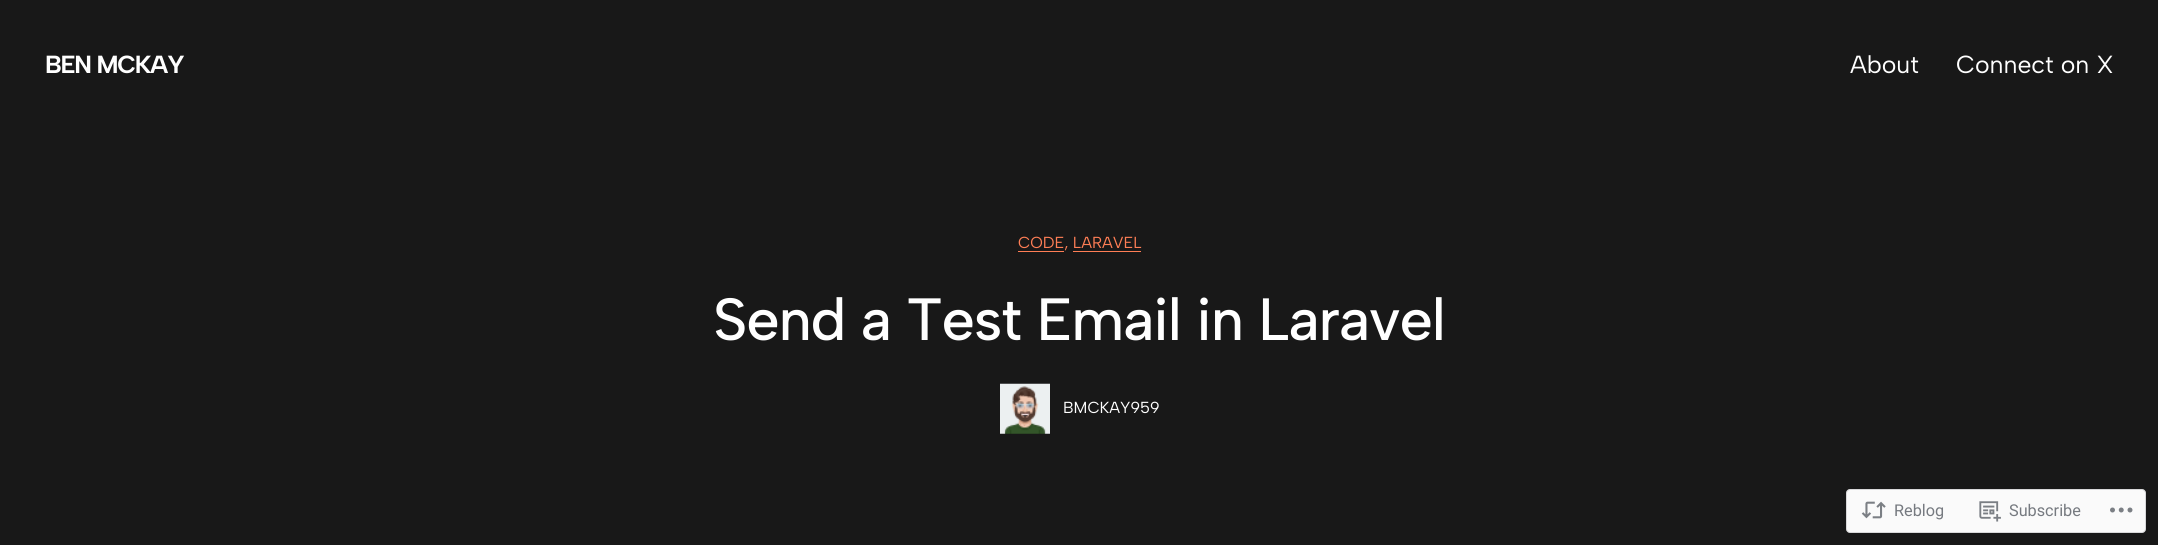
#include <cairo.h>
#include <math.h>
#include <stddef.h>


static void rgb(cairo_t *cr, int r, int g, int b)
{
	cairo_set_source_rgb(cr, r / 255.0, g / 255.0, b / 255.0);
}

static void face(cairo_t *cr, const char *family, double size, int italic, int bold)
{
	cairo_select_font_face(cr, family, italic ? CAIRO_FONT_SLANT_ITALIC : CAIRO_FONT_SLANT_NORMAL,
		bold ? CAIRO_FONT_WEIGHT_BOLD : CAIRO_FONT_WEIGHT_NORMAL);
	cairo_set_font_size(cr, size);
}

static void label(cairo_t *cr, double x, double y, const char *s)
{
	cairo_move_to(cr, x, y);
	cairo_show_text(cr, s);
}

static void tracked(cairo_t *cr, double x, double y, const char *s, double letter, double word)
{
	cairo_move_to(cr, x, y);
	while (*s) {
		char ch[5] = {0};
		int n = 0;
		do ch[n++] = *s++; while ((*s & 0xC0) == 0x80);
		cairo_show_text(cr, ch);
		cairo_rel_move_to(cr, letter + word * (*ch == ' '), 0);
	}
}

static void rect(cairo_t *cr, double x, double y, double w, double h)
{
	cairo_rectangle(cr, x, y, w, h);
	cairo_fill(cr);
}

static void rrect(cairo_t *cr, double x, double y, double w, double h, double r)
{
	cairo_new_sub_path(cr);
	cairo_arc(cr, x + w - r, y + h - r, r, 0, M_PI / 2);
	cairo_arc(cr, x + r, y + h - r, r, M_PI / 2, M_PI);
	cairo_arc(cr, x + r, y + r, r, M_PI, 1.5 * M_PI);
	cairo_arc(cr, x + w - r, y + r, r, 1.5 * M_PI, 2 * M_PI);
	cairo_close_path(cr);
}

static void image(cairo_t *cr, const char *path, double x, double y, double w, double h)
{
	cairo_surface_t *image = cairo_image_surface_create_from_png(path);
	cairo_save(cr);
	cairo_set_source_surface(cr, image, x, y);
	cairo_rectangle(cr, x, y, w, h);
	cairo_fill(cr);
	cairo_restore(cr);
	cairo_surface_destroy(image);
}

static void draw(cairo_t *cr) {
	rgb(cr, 24, 24, 24);
	cairo_paint(cr);
	face(cr, "Albert Sans", 24.75, 0, 1);
	rgb(cr, 255, 255, 255);
	tracked(cr, 45, 73, "BEN MCKAY", -1.25, 0);
	face(cr, "Albert Sans", 24.75, 0, 0);
	label(cr, 1850, 73, "About");
	label(cr, 1956, 73, "Connect on X");
	face(cr, "Albert Sans", 16, 0, 0);
	rgb(cr, 255, 126, 85);
	label(cr, 1018, 248, "CODE, LARAVEL");
	rect(cr, 1018, 251, 46, 1);
	rect(cr, 1073, 251, 68, 1);
	face(cr, "Albert Sans Medium", 59.5, 0, 0);
	rgb(cr, 255, 255, 255);
	tracked(cr, 713, 340, "Send a Test Email in Laravel", -1.25, 0);
	image(cr, "image0.png", 1000, 383, 50, 51);
	face(cr, "Albert Sans", 16, 0, 0);
	label(cr, 1063, 413, "BMCKAY959");
	rgb(cr, 250, 250, 250);
	rrect(cr, 1846.5, 489.5, 299, 43, 3.5);
	cairo_fill_preserve(cr);
	rgb(cr, 216, 216, 218);
	cairo_set_line_width(cr, 1);
	cairo_stroke(cr);
	image(cr, "image1.png", 1861, 501, 25, 18);
	face(cr, "Roboto", 16.25, 0, 0);
	rgb(cr, 118, 122, 128);
	label(cr, 1894, 516, "Reblog");
	image(cr, "image2.png", 1979, 501, 22, 21);
	label(cr, 2009, 516, "Subscribe");
	image(cr, "image3.png", 2110, 507, 23, 6);
}

int main(void) {
	cairo_surface_t *surface = cairo_image_surface_create(CAIRO_FORMAT_RGB24, 2158, 545);
	cairo_t *cr = cairo_create(surface);
	cairo_font_options_t *options = cairo_font_options_create();
	cairo_font_options_set_hint_metrics(options, CAIRO_HINT_METRICS_OFF);
	cairo_font_options_set_hint_style(options, CAIRO_HINT_STYLE_NONE);
	cairo_set_font_options(cr, options);
	cairo_set_miter_limit(cr, 4);
	draw(cr);
	cairo_surface_write_to_png(surface, "render.png");
	cairo_font_options_destroy(options);
	cairo_destroy(cr);
	cairo_surface_destroy(surface);
	return 0;
}
